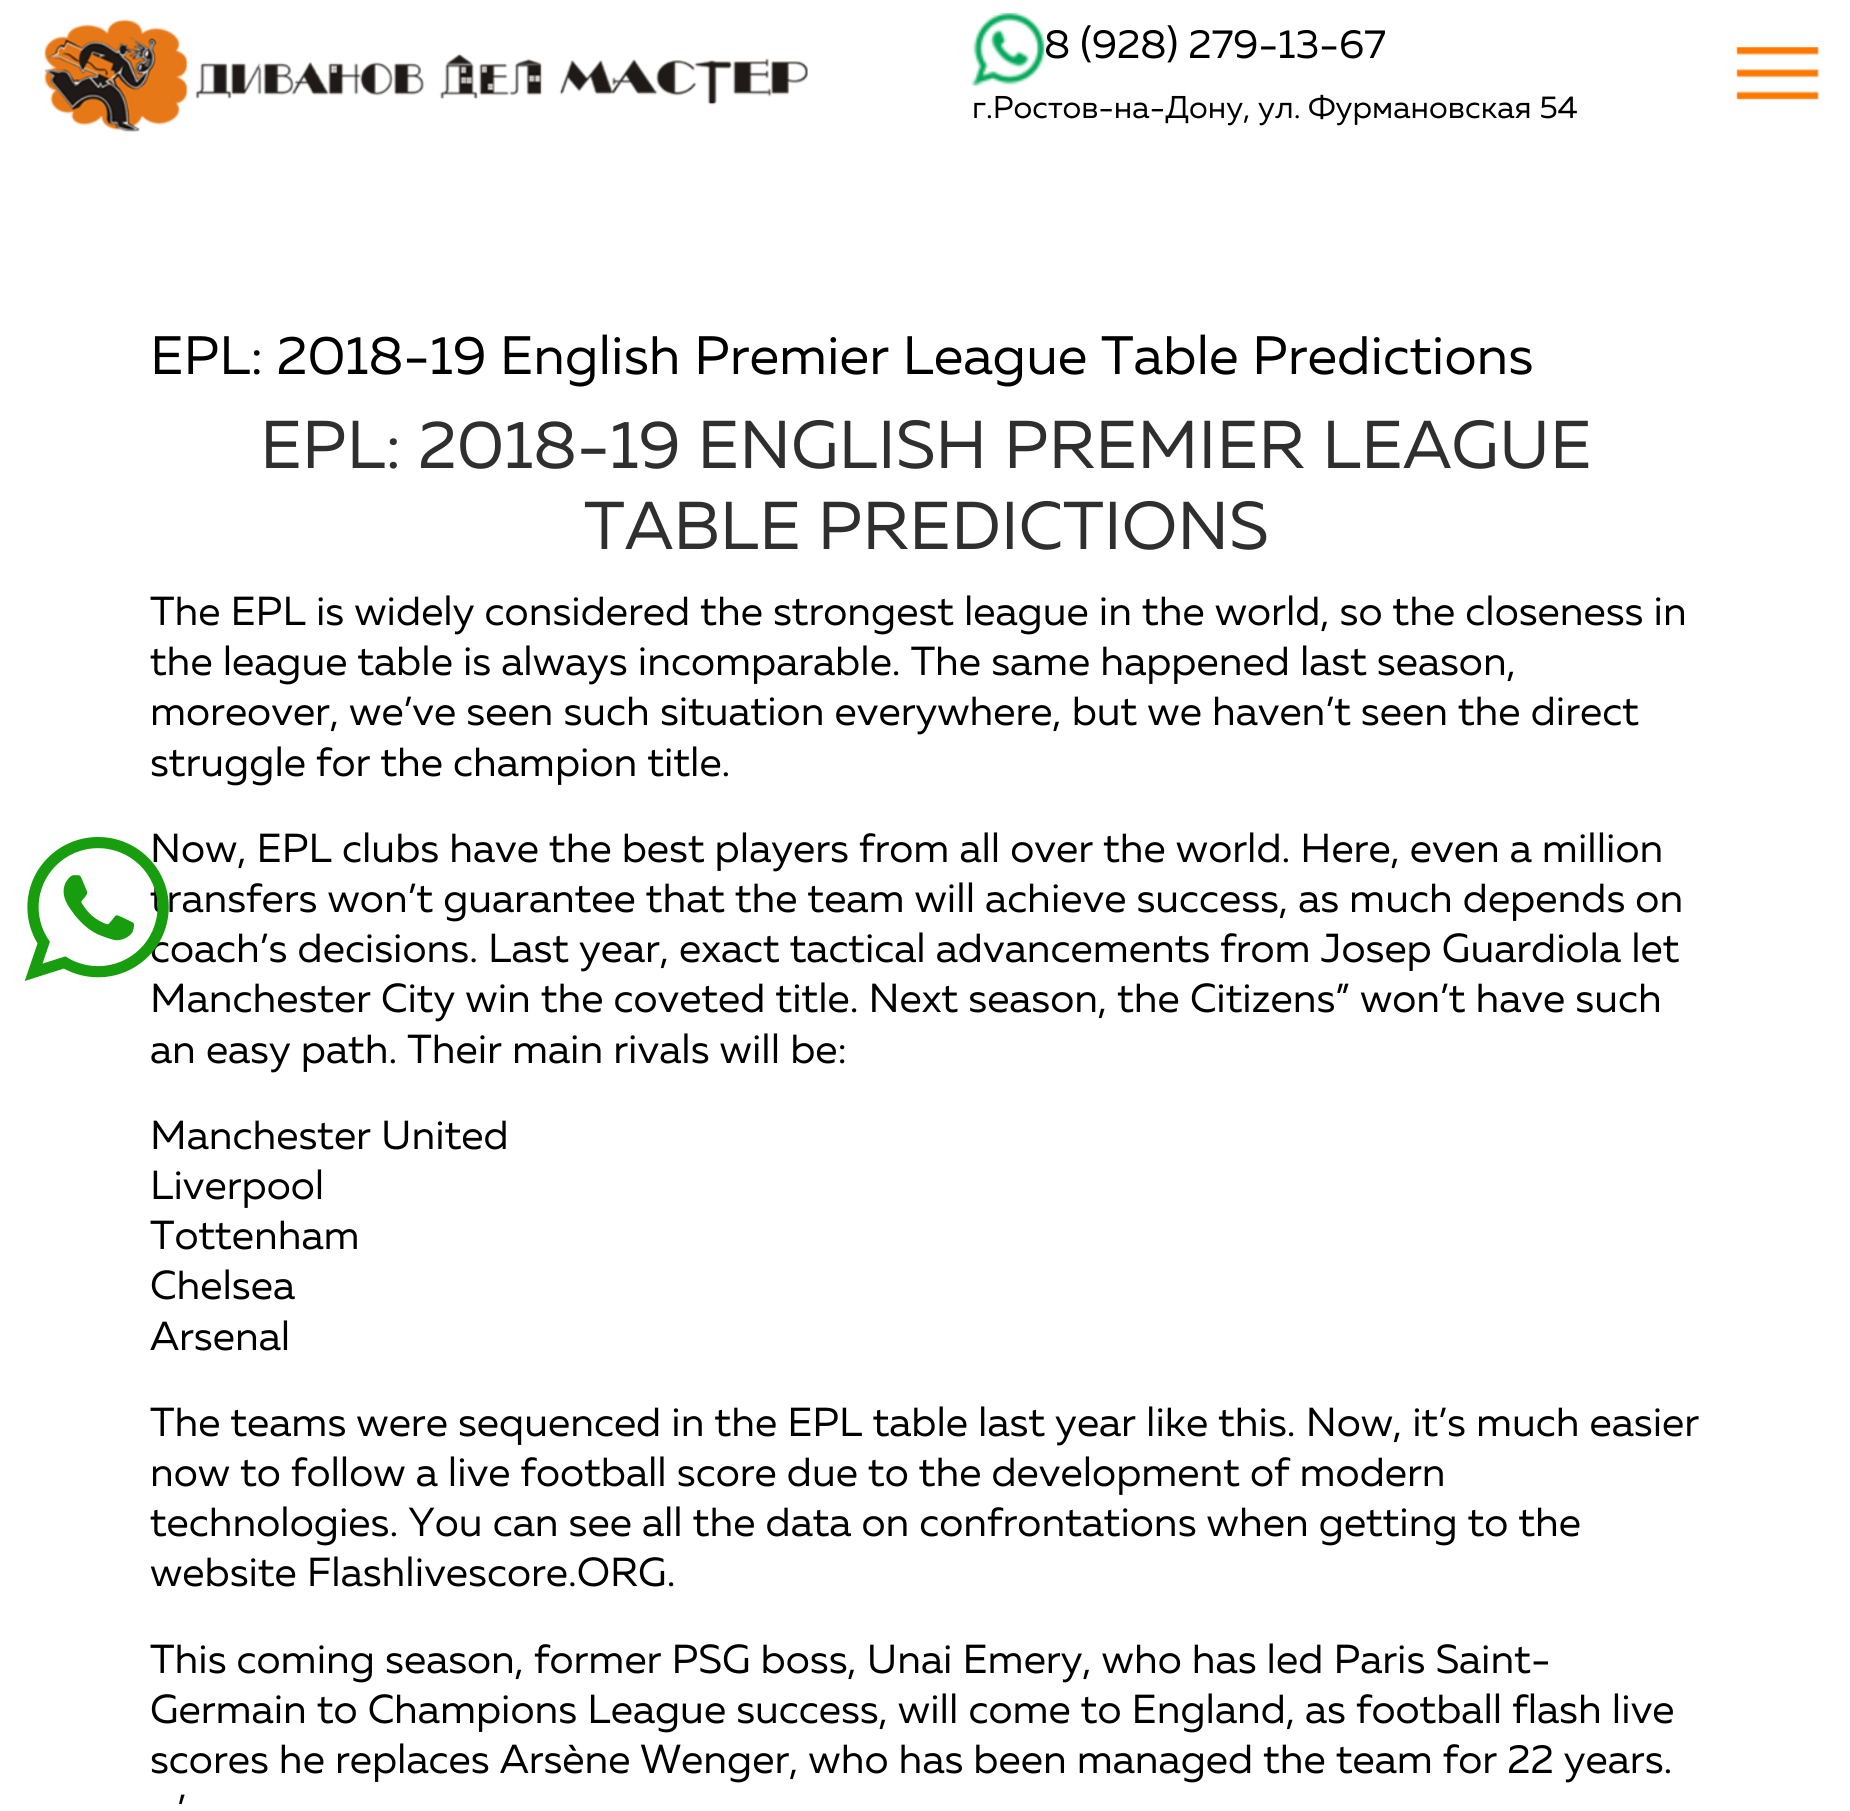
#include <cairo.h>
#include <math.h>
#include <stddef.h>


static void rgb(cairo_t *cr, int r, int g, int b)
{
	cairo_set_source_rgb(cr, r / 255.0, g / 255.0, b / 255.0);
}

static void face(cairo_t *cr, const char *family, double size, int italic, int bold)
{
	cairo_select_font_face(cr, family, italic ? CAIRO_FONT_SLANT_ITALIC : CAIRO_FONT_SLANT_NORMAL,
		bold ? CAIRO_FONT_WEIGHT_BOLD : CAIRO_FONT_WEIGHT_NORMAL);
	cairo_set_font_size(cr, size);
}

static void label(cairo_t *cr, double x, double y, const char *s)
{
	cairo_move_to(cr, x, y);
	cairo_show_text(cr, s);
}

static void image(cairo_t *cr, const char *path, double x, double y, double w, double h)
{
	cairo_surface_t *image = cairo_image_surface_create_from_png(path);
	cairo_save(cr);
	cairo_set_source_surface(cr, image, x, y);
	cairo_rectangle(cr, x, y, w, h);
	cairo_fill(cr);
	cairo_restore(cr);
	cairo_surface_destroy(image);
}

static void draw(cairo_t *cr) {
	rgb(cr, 255, 255, 255);
	cairo_paint(cr);
	image(cr, "image0.png", 44, 19, 764, 114);
	image(cr, "image1.png", 971, 13, 74, 74);
	face(cr, "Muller", 40.5, 0, 0);
	rgb(cr, 0, 0, 0);
	label(cr, 1044, 58, "8 (928) 279-13-67");
	face(cr, "Muller", 31.5, 0, 0);
	label(cr, 972, 118, "г.Ростов-на-Дону, ул. Фурмановская 54");
	image(cr, "image2.png", 1736, 47, 83, 53);
	face(cr, "Muller", 40.5, 0, 0);
	label(cr, 150, 862, "Now, EPL clubs have the best players from all over the world. Here, even a million");
	label(cr, 150, 912, "transfers won’t guarantee that the team will achieve success, as much depends on");
	label(cr, 150, 962, "coach’s decisions. Last year, exact tactical advancements from Josep Guardiola let");
	image(cr, "image3.png", 25, 837, 144, 144);
	face(cr, "Muller", 54, 0, 0);
	label(cr, 150, 374, "EPL: 2018-19 English Premier League Table Predictions");
	face(cr, "Muller", 67.5, 0, 0);
	rgb(cr, 47, 47, 47);
	label(cr, 260, 468, "EPL: 2018-19 ENGLISH PREMIER LEAGUE");
	label(cr, 584, 549, "TABLE PREDICTIONS");
	face(cr, "Muller", 40.5, 0, 0);
	rgb(cr, 0, 0, 0);
	label(cr, 150, 625, "The EPL is widely considered the strongest league in the world, so the closeness in");
	label(cr, 150, 675, "the league table is always incomparable. The same happened last season,");
	label(cr, 150, 725, "moreover, we’ve seen such situation everywhere, but we haven’t seen the direct");
	label(cr, 150, 776, "struggle for the champion title.");
	label(cr, 150, 1012, "Manchester City win the coveted title. Next season, the Citizens” won’t have such");
	label(cr, 150, 1063, "an easy path. Their main rivals will be:");
	label(cr, 150, 1149, "Manchester United");
	label(cr, 150, 1199, "Liverpool");
	label(cr, 150, 1249, "Tottenham");
	label(cr, 150, 1299, "Chelsea");
	label(cr, 150, 1350, "Arsenal");
	label(cr, 150, 1436, "The teams were sequenced in the EPL table last year like this. Now, it’s much easier");
	label(cr, 150, 1486, "now to follow a live football score due to the development of modern");
	label(cr, 150, 1536, "technologies. You can see all the data on confrontations when getting to the");
	label(cr, 150, 1586, "website Flashlivescore.ORG.");
	label(cr, 150, 1673, "This coming season, former PSG boss, Unai Emery, who has led Paris Saint-");
	label(cr, 150, 1723, "Germain to Champions League success, will come to England, as football flash live");
	label(cr, 150, 1773, "scores he replaces Arsène Wenger, who has been managed the team for 22 years.");
	label(cr, 177, 1823, "’");
}

int main(void) {
	cairo_surface_t *surface = cairo_image_surface_create(CAIRO_FORMAT_RGB24, 1850, 1811);
	cairo_t *cr = cairo_create(surface);
	cairo_font_options_t *options = cairo_font_options_create();
	cairo_font_options_set_hint_metrics(options, CAIRO_HINT_METRICS_OFF);
	cairo_font_options_set_hint_style(options, CAIRO_HINT_STYLE_NONE);
	cairo_set_font_options(cr, options);
	cairo_set_miter_limit(cr, 4);
	draw(cr);
	cairo_surface_write_to_png(surface, "render.png");
	cairo_font_options_destroy(options);
	cairo_destroy(cr);
	cairo_surface_destroy(surface);
	return 0;
}
